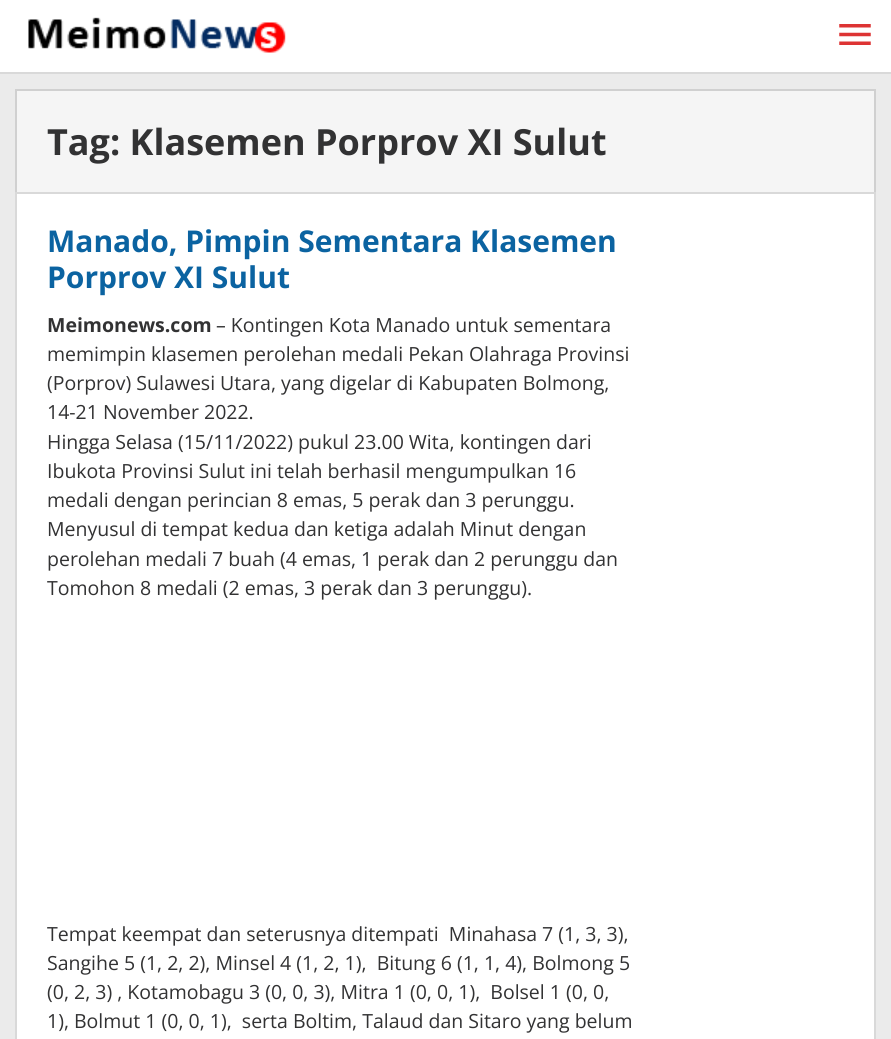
#include <cairo.h>
#include <math.h>
#include <stddef.h>


static void rgb(cairo_t *cr, int r, int g, int b)
{
	cairo_set_source_rgb(cr, r / 255.0, g / 255.0, b / 255.0);
}

static void face(cairo_t *cr, const char *family, double size, int italic, int bold)
{
	cairo_select_font_face(cr, family, italic ? CAIRO_FONT_SLANT_ITALIC : CAIRO_FONT_SLANT_NORMAL,
		bold ? CAIRO_FONT_WEIGHT_BOLD : CAIRO_FONT_WEIGHT_NORMAL);
	cairo_set_font_size(cr, size);
}

static void label(cairo_t *cr, double x, double y, const char *s)
{
	cairo_move_to(cr, x, y);
	cairo_show_text(cr, s);
}

static void rect(cairo_t *cr, double x, double y, double w, double h)
{
	cairo_rectangle(cr, x, y, w, h);
	cairo_fill(cr);
}

static void image(cairo_t *cr, const char *path, double x, double y, double w, double h)
{
	cairo_surface_t *image = cairo_image_surface_create_from_png(path);
	cairo_save(cr);
	cairo_set_source_surface(cr, image, x, y);
	cairo_rectangle(cr, x, y, w, h);
	cairo_fill(cr);
	cairo_restore(cr);
	cairo_surface_destroy(image);
}

static void draw(cairo_t *cr) {
	rgb(cr, 235, 235, 235);
	cairo_paint(cr);
	rgb(cr, 255, 255, 255);
	rect(cr, 0, 0, 891, 72);
	rgb(cr, 217, 217, 217);
	rect(cr, 0, 72, 891, 2);
	image(cr, "image0.png", 28, 17, 258, 36);
	image(cr, "image1.png", 839, 24, 32, 21);
	rgb(cr, 245, 245, 245);
	cairo_rectangle(cr, 16, 90, 859, 103);
	cairo_fill_preserve(cr);
	rgb(cr, 208, 208, 208);
	cairo_stroke(cr);
	face(cr, "Open Sans", 36, 0, 1);
	rgb(cr, 50, 50, 51);
	label(cr, 47, 155, "Tag: Klasemen Porprov XI Sulut");
	rgb(cr, 255, 255, 255);
	cairo_rectangle(cr, 16, 193, 859, 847);
	cairo_fill_preserve(cr);
	rgb(cr, 217, 217, 217);
	cairo_stroke(cr);
	face(cr, "Open Sans", 30, 0, 1);
	rgb(cr, 11, 99, 161);
	label(cr, 47, 252, "Manado, Pimpin Sementara Klasemen");
	label(cr, 47, 288, "Porprov XI Sulut");
	face(cr, "Open Sans", 19.5, 0, 1);
	rgb(cr, 50, 50, 51);
	label(cr, 47, 332, "Meimonews.com");
	face(cr, "Open Sans", 19.5, 0, 0);
	label(cr, 216, 332, "– Kontingen Kota Manado untuk sementara");
	label(cr, 47, 361, "memimpin klasemen perolehan medali Pekan Olahraga Provinsi");
	label(cr, 47, 390, "(Porprov) Sulawesi Utara, yang digelar di Kabupaten Bolmong,");
	label(cr, 47, 419, "14-21 November 2022.");
	label(cr, 47, 449, "Hingga Selasa (15/11/2022) pukul 23.00 Wita, kontingen dari");
	label(cr, 47, 478, "Ibukota Provinsi Sulut ini telah berhasil mengumpulkan 16");
	label(cr, 47, 507, "medali dengan perincian 8 emas, 5 perak dan 3 perunggu.");
	label(cr, 47, 536, "Menyusul di tempat kedua dan ketiga adalah Minut dengan");
	label(cr, 47, 566, "perolehan medali 7 buah (4 emas, 1 perak dan 2 perunggu dan");
	label(cr, 47, 595, "Tomohon 8 medali (2 emas, 3 perak dan 3 perunggu).");
	label(cr, 47, 941, "Tempat keempat dan seterusnya ditempati  Minahasa 7 (1, 3, 3),");
	label(cr, 47, 970, "Sangihe 5 (1, 2, 2), Minsel 4 (1, 2, 1),  Bitung 6 (1, 1, 4), Bolmong 5");
	label(cr, 47, 999, "(0, 2, 3) , Kotamobagu 3 (0, 0, 3), Mitra 1 (0, 0, 1),  Bolsel 1 (0, 0,");
	label(cr, 47, 1028, "1), Bolmut 1 (0, 0, 1),  serta Boltim, Talaud dan Sitaro yang belum");
}

int main(void) {
	cairo_surface_t *surface = cairo_image_surface_create(CAIRO_FORMAT_RGB24, 891, 1039);
	cairo_t *cr = cairo_create(surface);
	cairo_font_options_t *options = cairo_font_options_create();
	cairo_font_options_set_hint_metrics(options, CAIRO_HINT_METRICS_OFF);
	cairo_font_options_set_hint_style(options, CAIRO_HINT_STYLE_NONE);
	cairo_set_font_options(cr, options);
	cairo_set_miter_limit(cr, 4);
	draw(cr);
	cairo_surface_write_to_png(surface, "render.png");
	cairo_font_options_destroy(options);
	cairo_destroy(cr);
	cairo_surface_destroy(surface);
	return 0;
}
